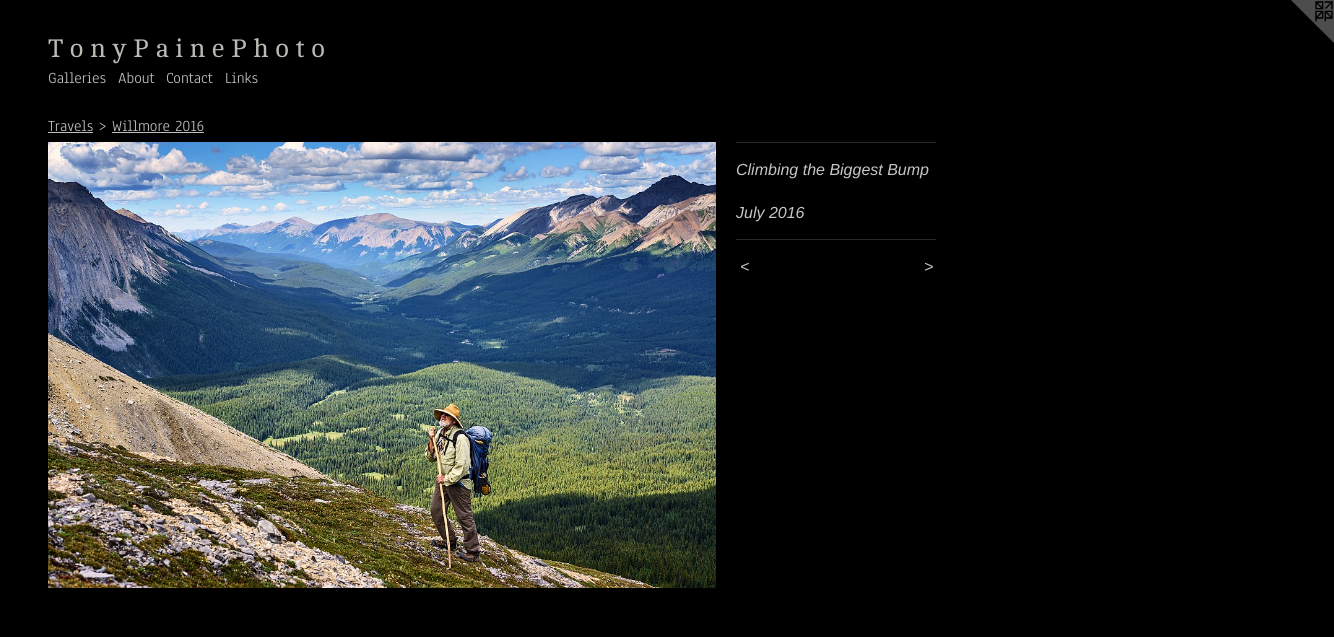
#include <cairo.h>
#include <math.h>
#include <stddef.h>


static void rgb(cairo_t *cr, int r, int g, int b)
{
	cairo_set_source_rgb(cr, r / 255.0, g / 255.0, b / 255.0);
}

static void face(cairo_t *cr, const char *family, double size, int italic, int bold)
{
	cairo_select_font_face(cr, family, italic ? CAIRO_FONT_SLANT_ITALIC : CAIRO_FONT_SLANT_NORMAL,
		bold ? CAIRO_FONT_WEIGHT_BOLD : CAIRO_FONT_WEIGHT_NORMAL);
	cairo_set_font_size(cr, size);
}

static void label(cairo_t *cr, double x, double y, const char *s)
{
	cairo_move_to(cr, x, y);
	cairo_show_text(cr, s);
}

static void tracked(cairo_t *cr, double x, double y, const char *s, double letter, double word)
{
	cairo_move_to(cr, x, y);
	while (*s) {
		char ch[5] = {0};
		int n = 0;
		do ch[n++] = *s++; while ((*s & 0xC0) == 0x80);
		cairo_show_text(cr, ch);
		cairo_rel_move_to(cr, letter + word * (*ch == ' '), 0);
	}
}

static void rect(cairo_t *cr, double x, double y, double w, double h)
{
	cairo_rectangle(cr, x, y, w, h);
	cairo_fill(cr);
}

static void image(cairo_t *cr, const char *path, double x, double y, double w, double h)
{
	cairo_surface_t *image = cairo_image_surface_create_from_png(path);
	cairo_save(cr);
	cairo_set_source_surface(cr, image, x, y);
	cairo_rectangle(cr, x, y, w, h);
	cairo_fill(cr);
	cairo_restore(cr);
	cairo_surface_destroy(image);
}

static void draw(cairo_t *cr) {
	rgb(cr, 0, 0, 0);
	cairo_paint(cr);
	image(cr, "image0.png", 1291, 0, 43, 43);
	face(cr, "Cambo", 26, 0, 0);
	rgb(cr, 186, 186, 181);
	label(cr, 48, 57, "T o n y P a i n e P h o t o");
	face(cr, "Anaheim", 16, 0, 0);
	rgb(cr, 190, 190, 187);
	label(cr, 48, 83, "Galleries");
	label(cr, 118, 83, "About");
	label(cr, 166, 83, "Contact");
	label(cr, 225, 83, "Links");
	label(cr, 48, 131, "Travels > Willmore 2016");
	rect(cr, 48, 132, 45, 1);
	rect(cr, 112, 132, 92, 1);
	image(cr, "image1.png", 48, 142, 668, 446);
	rgb(cr, 40, 40, 40);
	rect(cr, 736, 142, 200, 1);
	face(cr, "Liberation Sans", 16, 1, 0);
	rgb(cr, 198, 198, 200);
	label(cr, 736, 175, "Climbing the Biggest Bump");
	label(cr, 736, 218, "July 2016");
	rgb(cr, 40, 40, 40);
	rect(cr, 736, 239, 200, 1);
	rgb(cr, 198, 198, 200);
	tracked(cr, 740, 272, "<", 1, 0);
	tracked(cr, 924, 272, ">", 1, 0);
}

int main(void) {
	cairo_surface_t *surface = cairo_image_surface_create(CAIRO_FORMAT_RGB24, 1334, 637);
	cairo_t *cr = cairo_create(surface);
	cairo_font_options_t *options = cairo_font_options_create();
	cairo_font_options_set_hint_metrics(options, CAIRO_HINT_METRICS_OFF);
	cairo_font_options_set_hint_style(options, CAIRO_HINT_STYLE_NONE);
	cairo_set_font_options(cr, options);
	cairo_set_miter_limit(cr, 4);
	draw(cr);
	cairo_surface_write_to_png(surface, "render.png");
	cairo_font_options_destroy(options);
	cairo_destroy(cr);
	cairo_surface_destroy(surface);
	return 0;
}
